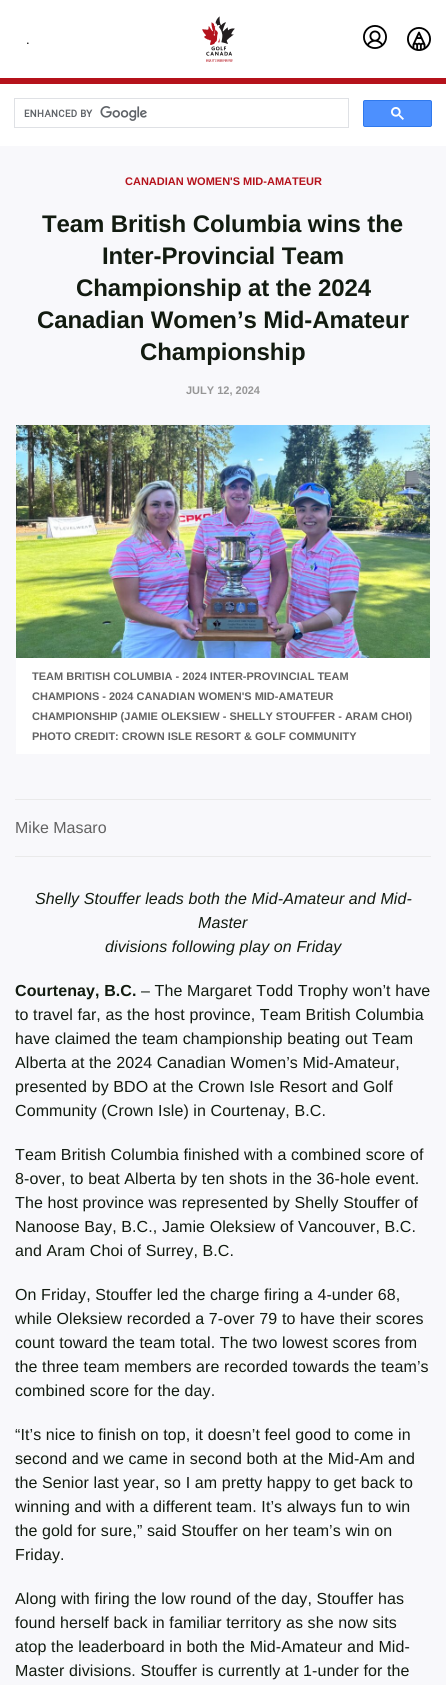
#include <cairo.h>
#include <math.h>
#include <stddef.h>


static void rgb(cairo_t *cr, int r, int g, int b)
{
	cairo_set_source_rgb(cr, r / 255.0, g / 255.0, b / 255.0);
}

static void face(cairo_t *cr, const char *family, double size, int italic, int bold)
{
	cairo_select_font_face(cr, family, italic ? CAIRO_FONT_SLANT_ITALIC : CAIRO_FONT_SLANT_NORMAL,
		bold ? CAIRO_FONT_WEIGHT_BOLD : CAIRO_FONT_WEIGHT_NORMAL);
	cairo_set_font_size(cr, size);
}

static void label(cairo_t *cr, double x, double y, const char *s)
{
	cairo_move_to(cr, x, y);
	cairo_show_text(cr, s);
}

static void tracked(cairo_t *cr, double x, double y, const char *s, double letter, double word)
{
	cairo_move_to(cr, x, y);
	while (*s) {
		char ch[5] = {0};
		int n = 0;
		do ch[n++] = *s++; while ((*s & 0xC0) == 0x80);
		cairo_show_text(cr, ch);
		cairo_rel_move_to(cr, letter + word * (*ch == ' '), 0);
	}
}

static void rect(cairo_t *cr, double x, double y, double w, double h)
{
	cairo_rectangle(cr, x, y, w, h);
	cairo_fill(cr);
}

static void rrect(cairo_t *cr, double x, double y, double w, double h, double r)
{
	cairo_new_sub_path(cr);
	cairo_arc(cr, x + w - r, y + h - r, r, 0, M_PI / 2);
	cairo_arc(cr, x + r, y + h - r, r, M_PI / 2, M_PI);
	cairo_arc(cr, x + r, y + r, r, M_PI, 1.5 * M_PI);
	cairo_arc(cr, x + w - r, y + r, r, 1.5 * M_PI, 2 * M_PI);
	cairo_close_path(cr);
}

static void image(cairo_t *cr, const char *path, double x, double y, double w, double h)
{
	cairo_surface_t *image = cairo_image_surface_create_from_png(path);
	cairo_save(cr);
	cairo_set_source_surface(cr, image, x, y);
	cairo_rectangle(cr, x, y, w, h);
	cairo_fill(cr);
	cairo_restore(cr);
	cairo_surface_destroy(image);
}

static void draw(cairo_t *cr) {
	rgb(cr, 248, 248, 251);
	cairo_paint(cr);
	rgb(cr, 255, 255, 255);
	rect(cr, 0, 0, 446, 146);
	face(cr, "Liberation Sans", 13, 0, 0);
	rgb(cr, 0, 0, 0);
	label(cr, 26, 44, ".");
	image(cr, "image0.png", 202, 16, 33, 46);
	image(cr, "image1.png", 363, 25, 24, 24);
	image(cr, "image2.png", 407, 27, 24, 24);
	rgb(cr, 181, 18, 27);
	rect(cr, 0, 78, 446, 6);
	cairo_rectangle(cr, 14.5, 98.5, 334, 29);
	rgb(cr, 223, 225, 229);
	cairo_set_line_width(cr, 1);
	cairo_stroke(cr);
	image(cr, "image3.png", 24, 106, 123, 15);
	rgb(cr, 77, 144, 254);
	rrect(cr, 363.5, 100.5, 68, 26, 1.5);
	cairo_fill_preserve(cr);
	rgb(cr, 48, 121, 237);
	cairo_stroke(cr);
	image(cr, "image4.png", 391, 107, 13, 13);
	face(cr, "Liberation Sans", 11, 0, 1);
	rgb(cr, 181, 18, 27);
	label(cr, 125, 185, "CANADIAN WOMEN'S MID-AMATEUR");
	face(cr, "Liberation Sans", 24, 0, 1);
	rgb(cr, 18, 27, 16);
	tracked(cr, 42, 232, "Team British Columbia wins the", -0.1, 0);
	tracked(cr, 102, 264, "Inter-Provincial Team", -0.1, 0);
	tracked(cr, 76, 296, "Championship at the 2024", -0.1, 0);
	tracked(cr, 37, 328, "Canadian Women’s Mid-Amateur", -0.1, 0);
	tracked(cr, 140, 360, "Championship", -0.1, 0);
	face(cr, "Liberation Sans", 11, 0, 1);
	rgb(cr, 150, 150, 150);
	label(cr, 186, 394, "JULY 12, 2024");
	image(cr, "image5.png", 16, 425, 414, 233);
	rgb(cr, 255, 255, 255);
	rect(cr, 16, 658, 414, 96);
	rgb(cr, 98, 98, 98);
	label(cr, 32, 680, "TEAM BRITISH COLUMBIA - 2024 INTER-PROVINCIAL TEAM");
	label(cr, 32, 700, "CHAMPIONS - 2024 CANADIAN WOMEN'S MID-AMATEUR");
	label(cr, 32, 720, "CHAMPIONSHIP (JAMIE OLEKSIEW - SHELLY STOUFFER - ARAM CHOI)");
	label(cr, 32, 740, "PHOTO CREDIT: CROWN ISLE RESORT & GOLF COMMUNITY");
	rgb(cr, 234, 234, 234);
	rect(cr, 15, 799, 416, 1);
	rect(cr, 15, 856, 416, 1);
	face(cr, "Liberation Sans", 16, 0, 0);
	rgb(cr, 98, 98, 98);
	label(cr, 15, 833, "Mike Masaro");
	face(cr, "Liberation Sans", 16, 1, 0);
	rgb(cr, 18, 27, 16);
	tracked(cr, 35, 904, "Shelly Stouffer leads both the Mid-Amateur and Mid-", 0.1, 0);
	tracked(cr, 198, 928, "Master", 0.1, 0);
	tracked(cr, 105, 952, "divisions following play on Friday", 0.1, 0);
	face(cr, "Liberation Sans", 16, 0, 1);
	tracked(cr, 15, 996, "Courtenay, B.C.", 0.1, 0);
	face(cr, "Liberation Sans", 16, 0, 0);
	tracked(cr, 141, 996, "– The Margaret Todd Trophy won’t have", 0.1, 0);
	tracked(cr, 15, 1020, "to travel far, as the host province, Team British Columbia", 0.1, 0);
	tracked(cr, 15, 1044, "have claimed the team championship beating out Team", 0.1, 0);
	tracked(cr, 15, 1068, "Alberta at the 2024 Canadian Women’s Mid-Amateur,", 0.1, 0);
	tracked(cr, 15, 1092, "presented by BDO at the Crown Isle Resort and Golf", 0.1, 0);
	tracked(cr, 15, 1116, "Community (Crown Isle) in Courtenay, B.C.", 0.1, 0);
	tracked(cr, 15, 1160, "Team British Columbia finished with a combined score of", 0.1, 0);
	tracked(cr, 15, 1184, "8-over, to beat Alberta by ten shots in the 36-hole event.", 0.1, 0);
	tracked(cr, 15, 1208, "The host province was represented by Shelly Stouffer of", 0.1, 0);
	tracked(cr, 15, 1232, "Nanoose Bay, B.C., Jamie Oleksiew of Vancouver, B.C.", 0.1, 0);
	tracked(cr, 15, 1256, "and Aram Choi of Surrey, B.C.", 0.1, 0);
	tracked(cr, 15, 1300, "On Friday, Stouffer led the charge firing a 4-under 68,", 0.1, 0);
	tracked(cr, 15, 1324, "while Oleksiew recorded a 7-over 79 to have their scores", 0.1, 0);
	tracked(cr, 15, 1348, "count toward the team total. The two lowest scores from", 0.1, 0);
	tracked(cr, 15, 1372, "the three team members are recorded towards the team’s", 0.1, 0);
	tracked(cr, 15, 1396, "combined score for the day.", 0.1, 0);
	tracked(cr, 15, 1440, "“It’s nice to finish on top, it doesn’t feel good to come in", 0.1, 0);
	tracked(cr, 15, 1464, "second and we came in second both at the Mid-Am and", 0.1, 0);
	tracked(cr, 15, 1488, "the Senior last year, so I am pretty happy to get back to", 0.1, 0);
	tracked(cr, 15, 1512, "winning and with a different team. It’s always fun to win", 0.1, 0);
	tracked(cr, 15, 1536, "the gold for sure,” said Stouffer on her team’s win on", 0.1, 0);
	tracked(cr, 15, 1560, "Friday.", 0.1, 0);
	tracked(cr, 15, 1604, "Along with firing the low round of the day, Stouffer has", 0.1, 0);
	tracked(cr, 15, 1628, "found herself back in familiar territory as she now sits", 0.1, 0);
	tracked(cr, 15, 1652, "atop the leaderboard in both the Mid-Amateur and Mid-", 0.1, 0);
	tracked(cr, 15, 1676, "Master divisions. Stouffer is currently at 1-under for the", 0.1, 0);
}

int main(void) {
	cairo_surface_t *surface = cairo_image_surface_create(CAIRO_FORMAT_RGB24, 446, 1685);
	cairo_t *cr = cairo_create(surface);
	cairo_font_options_t *options = cairo_font_options_create();
	cairo_font_options_set_hint_metrics(options, CAIRO_HINT_METRICS_OFF);
	cairo_font_options_set_hint_style(options, CAIRO_HINT_STYLE_NONE);
	cairo_set_font_options(cr, options);
	cairo_set_miter_limit(cr, 4);
	draw(cr);
	cairo_surface_write_to_png(surface, "render.png");
	cairo_font_options_destroy(options);
	cairo_destroy(cr);
	cairo_surface_destroy(surface);
	return 0;
}
